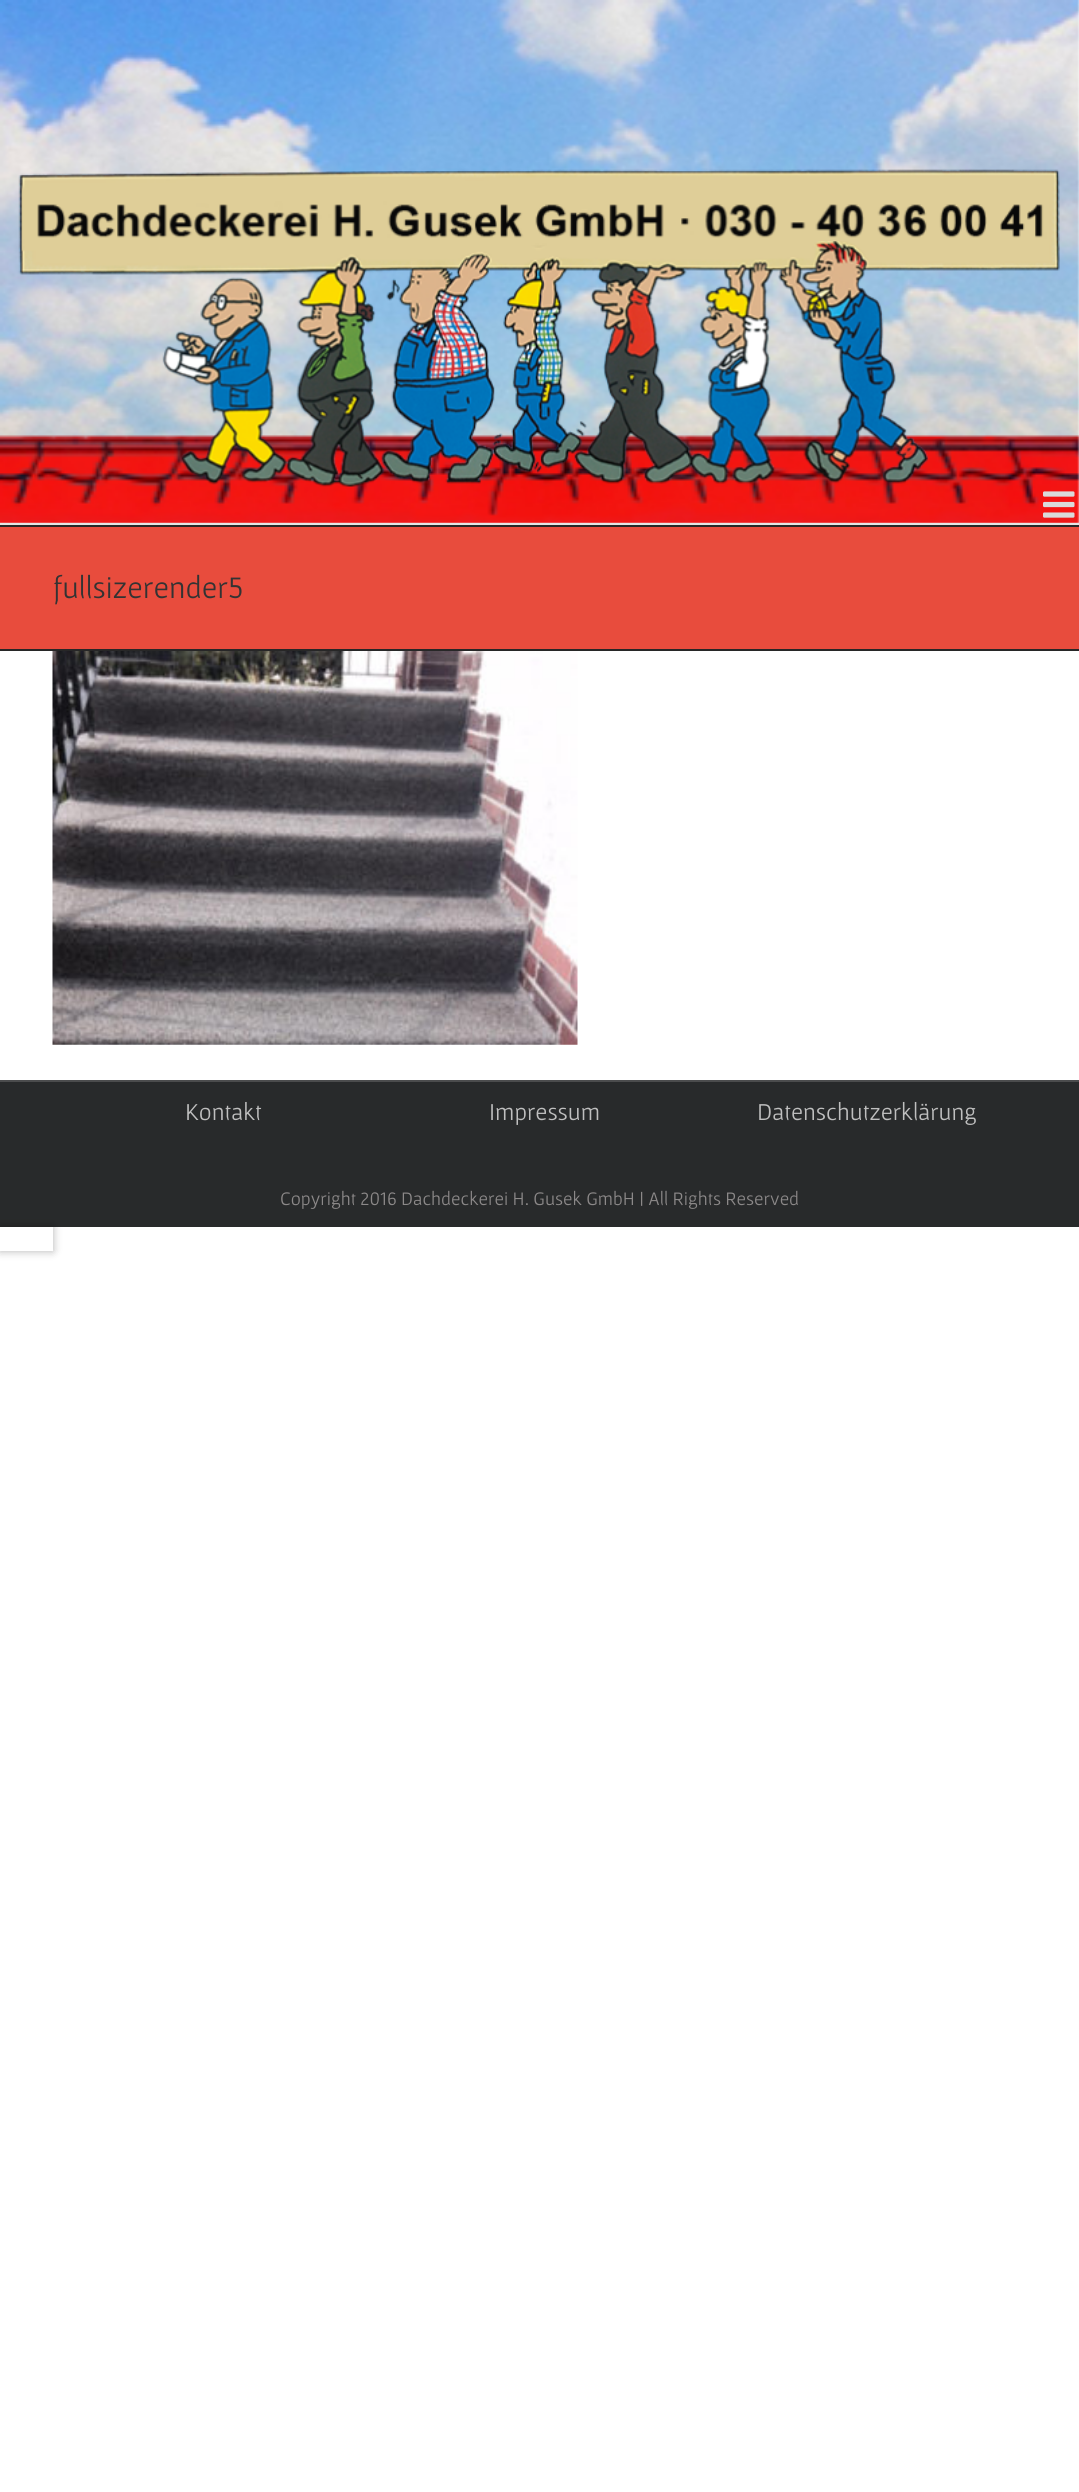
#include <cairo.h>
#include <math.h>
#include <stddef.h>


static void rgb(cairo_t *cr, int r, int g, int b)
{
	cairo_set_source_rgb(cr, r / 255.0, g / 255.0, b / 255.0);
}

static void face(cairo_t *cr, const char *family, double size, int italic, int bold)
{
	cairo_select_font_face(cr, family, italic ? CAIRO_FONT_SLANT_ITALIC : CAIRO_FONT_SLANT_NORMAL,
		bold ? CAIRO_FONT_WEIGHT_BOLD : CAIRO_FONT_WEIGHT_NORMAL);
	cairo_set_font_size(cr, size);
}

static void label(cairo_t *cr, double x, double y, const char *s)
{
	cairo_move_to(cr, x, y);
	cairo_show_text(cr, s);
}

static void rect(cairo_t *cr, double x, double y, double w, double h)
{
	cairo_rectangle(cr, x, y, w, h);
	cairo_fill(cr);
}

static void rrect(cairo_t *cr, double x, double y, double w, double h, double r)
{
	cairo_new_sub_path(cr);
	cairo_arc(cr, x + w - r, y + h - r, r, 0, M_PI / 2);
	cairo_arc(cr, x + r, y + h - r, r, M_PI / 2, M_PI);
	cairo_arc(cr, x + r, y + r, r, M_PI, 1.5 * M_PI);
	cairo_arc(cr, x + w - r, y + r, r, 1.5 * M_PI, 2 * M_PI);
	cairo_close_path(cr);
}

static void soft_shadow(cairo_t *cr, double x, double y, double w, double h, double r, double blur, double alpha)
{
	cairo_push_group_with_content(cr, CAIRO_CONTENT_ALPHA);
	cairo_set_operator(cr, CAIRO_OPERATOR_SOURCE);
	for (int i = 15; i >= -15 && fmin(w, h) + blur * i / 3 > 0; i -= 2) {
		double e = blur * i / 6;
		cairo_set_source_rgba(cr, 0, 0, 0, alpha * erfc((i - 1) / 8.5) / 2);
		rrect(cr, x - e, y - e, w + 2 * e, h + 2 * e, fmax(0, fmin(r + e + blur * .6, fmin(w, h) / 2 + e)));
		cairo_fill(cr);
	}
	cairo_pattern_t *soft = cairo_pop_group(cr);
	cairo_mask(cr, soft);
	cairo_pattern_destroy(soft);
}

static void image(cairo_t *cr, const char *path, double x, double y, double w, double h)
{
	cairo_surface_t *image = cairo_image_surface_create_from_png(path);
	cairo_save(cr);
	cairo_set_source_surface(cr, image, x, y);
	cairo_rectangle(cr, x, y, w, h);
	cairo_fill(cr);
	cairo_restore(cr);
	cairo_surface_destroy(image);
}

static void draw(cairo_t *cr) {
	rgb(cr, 255, 255, 255);
	cairo_paint(cr);
	image(cr, "image0.png", 0, 0, 1079, 523);
	rgb(cr, 229, 229, 229);
	rect(cr, 0, 523, 1079, 2);
	image(cr, "image1.png", 18, 169, 1042, 318);
	image(cr, "image2.png", 1043, 491, 32, 27);
	rgb(cr, 232, 76, 61);
	rect(cr, 0, 527, 1079, 122);
	rgb(cr, 39, 39, 39);
	rect(cr, 0, 525, 1079, 2);
	rect(cr, 0, 649, 1079, 2);
	face(cr, "Gafata", 31.5, 0, 0);
	rgb(cr, 51, 51, 51);
	label(cr, 53, 598, "fullsizerender5");
	image(cr, "image3.png", 52, 651, 526, 394);
	rgb(cr, 40, 42, 43);
	rect(cr, 0, 1082, 1079, 145);
	rgb(cr, 75, 76, 77);
	rect(cr, 0, 1080, 1079, 2);
	face(cr, "Gafata", 24.5, 0, 0);
	rgb(cr, 191, 191, 191);
	label(cr, 185, 1120, "Kontakt");
	label(cr, 489, 1120, "Impressum");
	label(cr, 757, 1120, "Datenschutzerklärung");
	face(cr, "Gafata", 19.25, 0, 0);
	rgb(cr, 140, 137, 137);
	label(cr, 280, 1205, "Copyright 2016 Dachdeckerei H. Gusek GmbH | All Rights Reserved");
	cairo_save(cr);
	cairo_set_fill_rule(cr, CAIRO_FILL_RULE_EVEN_ODD);
	cairo_new_path(cr);
	cairo_move_to(cr, 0, 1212);
	cairo_line_to(cr, 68, 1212);
	cairo_line_to(cr, 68, 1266);
	cairo_line_to(cr, 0, 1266);
	cairo_close_path(cr);
	cairo_move_to(cr, 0, 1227);
	cairo_line_to(cr, 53, 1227);
	cairo_line_to(cr, 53, 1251);
	cairo_line_to(cr, 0, 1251);
	cairo_close_path(cr);
	cairo_clip(cr);
	rgb(cr, 0, 0, 0);
	soft_shadow(cr, 0, 1227, 53, 24, 0, 4.5, 0.3);
	cairo_restore(cr);
}

int main(void) {
	cairo_surface_t *surface = cairo_image_surface_create(CAIRO_FORMAT_RGB24, 1079, 2492);
	cairo_t *cr = cairo_create(surface);
	cairo_font_options_t *options = cairo_font_options_create();
	cairo_font_options_set_hint_metrics(options, CAIRO_HINT_METRICS_OFF);
	cairo_font_options_set_hint_style(options, CAIRO_HINT_STYLE_NONE);
	cairo_set_font_options(cr, options);
	cairo_set_miter_limit(cr, 4);
	draw(cr);
	cairo_surface_write_to_png(surface, "render.png");
	cairo_font_options_destroy(options);
	cairo_destroy(cr);
	cairo_surface_destroy(surface);
	return 0;
}
